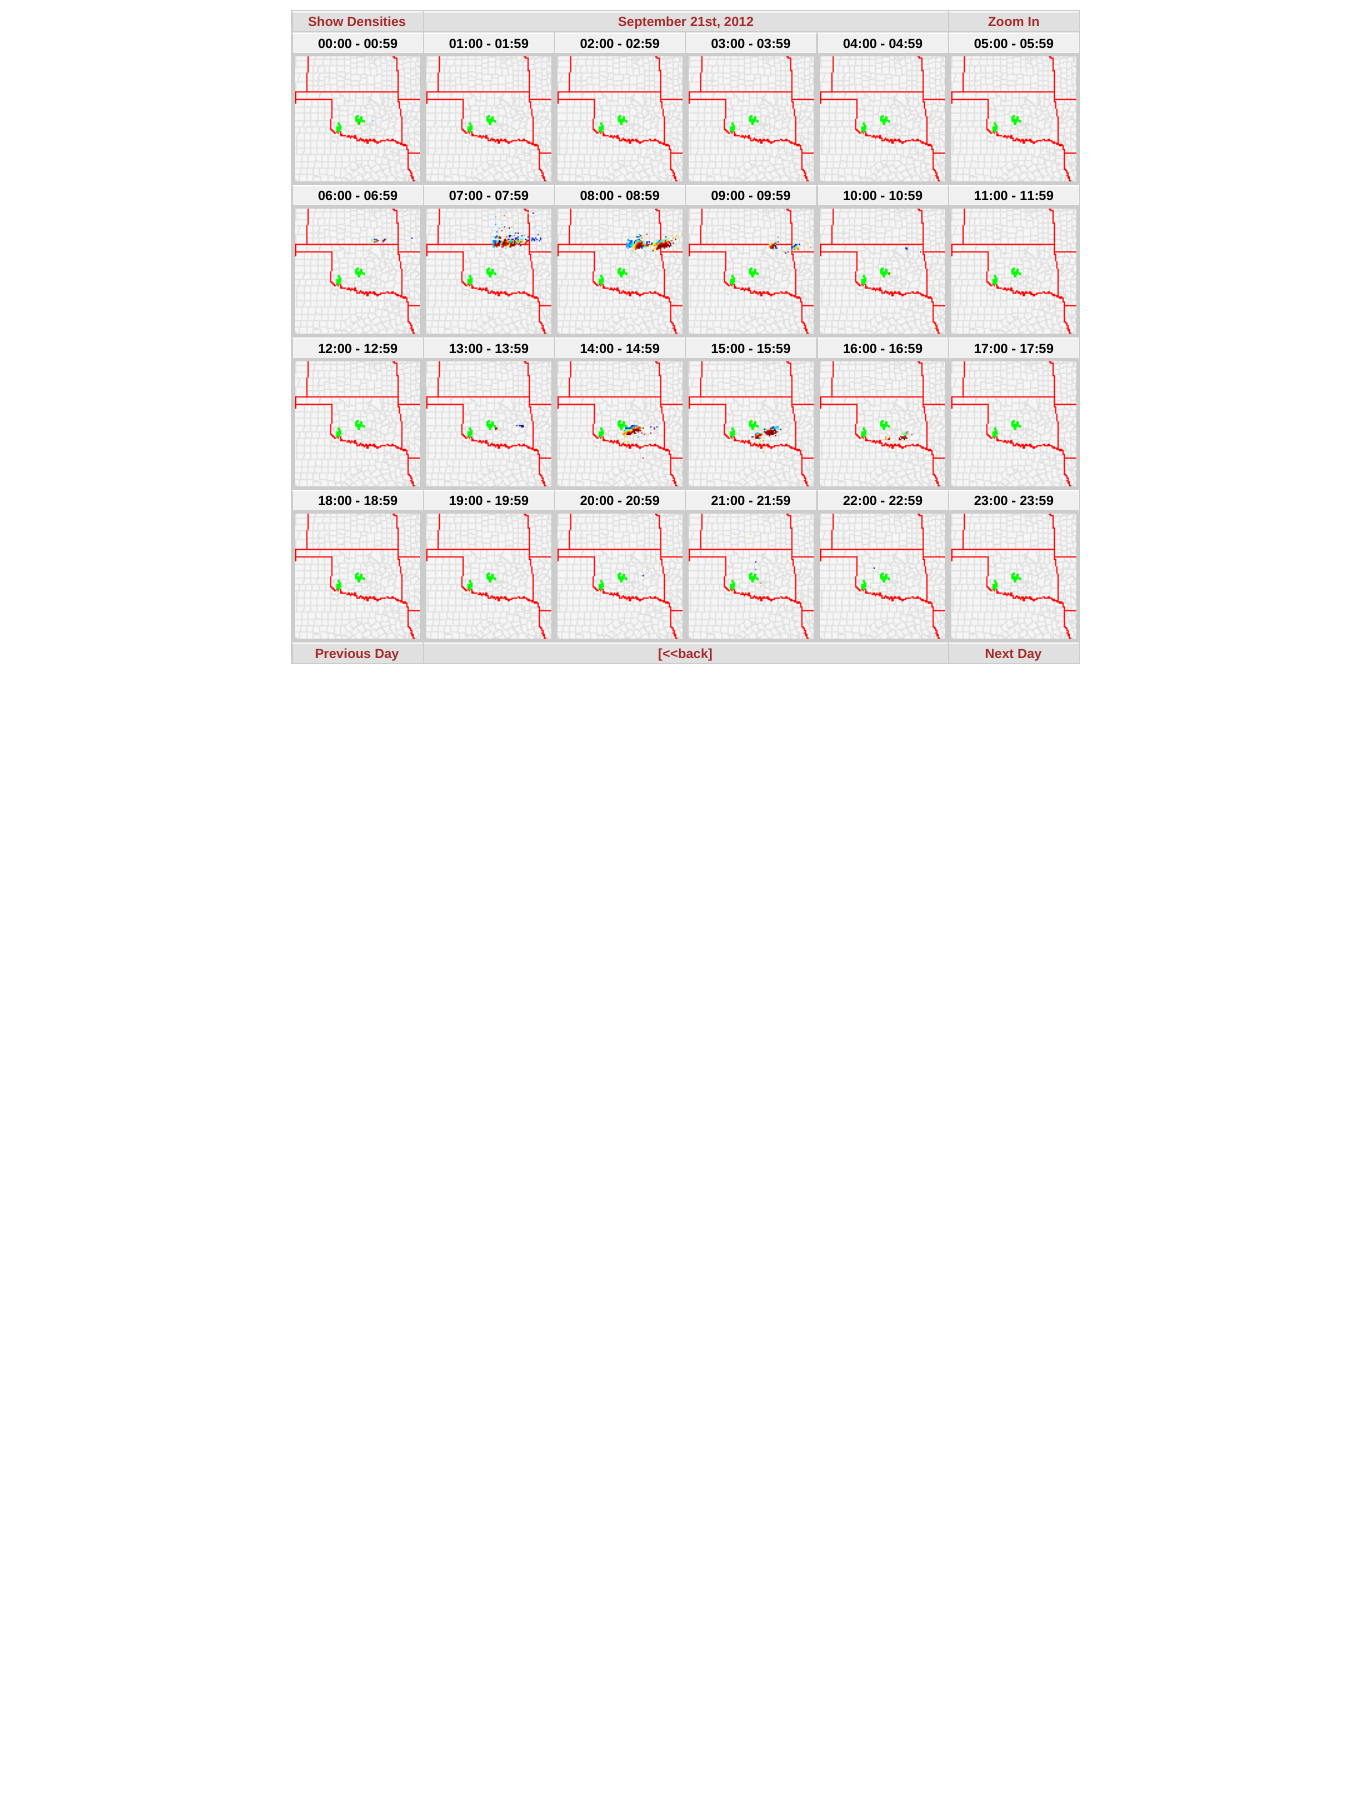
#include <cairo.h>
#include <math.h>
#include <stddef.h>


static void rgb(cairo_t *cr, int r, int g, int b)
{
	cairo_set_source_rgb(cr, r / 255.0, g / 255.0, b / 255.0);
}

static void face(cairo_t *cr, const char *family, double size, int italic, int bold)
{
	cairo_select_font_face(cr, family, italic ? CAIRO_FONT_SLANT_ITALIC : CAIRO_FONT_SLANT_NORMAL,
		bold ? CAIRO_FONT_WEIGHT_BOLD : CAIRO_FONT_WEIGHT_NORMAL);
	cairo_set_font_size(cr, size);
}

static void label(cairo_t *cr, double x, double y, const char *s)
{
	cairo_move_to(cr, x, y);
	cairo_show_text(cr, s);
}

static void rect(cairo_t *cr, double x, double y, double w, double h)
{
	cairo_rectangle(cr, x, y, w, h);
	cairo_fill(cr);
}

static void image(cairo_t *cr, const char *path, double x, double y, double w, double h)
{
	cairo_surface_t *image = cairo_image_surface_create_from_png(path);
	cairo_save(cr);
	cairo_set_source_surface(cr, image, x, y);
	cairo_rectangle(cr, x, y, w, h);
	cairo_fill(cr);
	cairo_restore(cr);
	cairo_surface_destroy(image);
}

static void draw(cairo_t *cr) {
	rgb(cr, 255, 255, 255);
	cairo_paint(cr);
	rgb(cr, 204, 204, 204);
	rect(cr, 291, 10, 789, 654);
	rgb(cr, 224, 224, 224);
	rect(cr, 293, 11, 130, 20);
	image(cr, "image0.png", 292, 11, 131, 2);
	face(cr, "Liberation Sans", 13.25, 0, 1);
	rgb(cr, 165, 42, 42);
	label(cr, 308, 26, "Show Densities");
	rgb(cr, 224, 224, 224);
	rect(cr, 424, 11, 524, 20);
	image(cr, "image1.png", 423, 11, 525, 2);
	rgb(cr, 165, 42, 42);
	label(cr, 618, 26, "September 21st, 2012");
	rgb(cr, 224, 224, 224);
	rect(cr, 949, 11, 130, 20);
	image(cr, "image2.png", 948, 11, 131, 2);
	rgb(cr, 165, 42, 42);
	label(cr, 988, 26, "Zoom In");
	rgb(cr, 240, 240, 240);
	rect(cr, 293, 33, 130, 20);
	image(cr, "image3.png", 292, 32, 131, 2);
	rgb(cr, 0, 0, 0);
	label(cr, 318, 48, "00:00 - 00:59");
	rgb(cr, 240, 240, 240);
	rect(cr, 424, 33, 130, 20);
	image(cr, "image4.png", 423, 32, 131, 2);
	rgb(cr, 0, 0, 0);
	label(cr, 449, 48, "01:00 - 01:59");
	rgb(cr, 240, 240, 240);
	rect(cr, 555, 33, 130, 20);
	image(cr, "image5.png", 555, 32, 130, 2);
	rgb(cr, 0, 0, 0);
	label(cr, 580, 48, "02:00 - 02:59");
	rgb(cr, 240, 240, 240);
	rect(cr, 686, 33, 130, 20);
	image(cr, "image6.png", 686, 32, 131, 2);
	rgb(cr, 0, 0, 0);
	label(cr, 711, 48, "03:00 - 03:59");
	rgb(cr, 240, 240, 240);
	rect(cr, 818, 33, 130, 20);
	image(cr, "image3.png", 817, 32, 131, 2);
	rgb(cr, 0, 0, 0);
	label(cr, 843, 48, "04:00 - 04:59");
	rgb(cr, 240, 240, 240);
	rect(cr, 949, 33, 130, 20);
	image(cr, "image4.png", 948, 32, 131, 2);
	rgb(cr, 0, 0, 0);
	label(cr, 974, 48, "05:00 - 05:59");
	image(cr, "image7.png", 295, 56, 125, 126);
	image(cr, "image8.png", 426, 56, 126, 126);
	image(cr, "image9.png", 557, 56, 126, 126);
	image(cr, "image10.png", 688, 56, 126, 126);
	image(cr, "image11.png", 820, 56, 125, 126);
	image(cr, "image8.png", 951, 56, 126, 126);
	rgb(cr, 240, 240, 240);
	rect(cr, 293, 185, 130, 20);
	image(cr, "image12.png", 292, 185, 131, 2);
	rgb(cr, 0, 0, 0);
	label(cr, 318, 200, "06:00 - 06:59");
	rgb(cr, 240, 240, 240);
	rect(cr, 424, 185, 130, 20);
	image(cr, "image13.png", 423, 185, 131, 2);
	rgb(cr, 0, 0, 0);
	label(cr, 449, 200, "07:00 - 07:59");
	rgb(cr, 240, 240, 240);
	rect(cr, 555, 186, 130, 19);
	image(cr, "image14.png", 555, 185, 130, 2);
	rgb(cr, 0, 0, 0);
	label(cr, 580, 200, "08:00 - 08:59");
	rgb(cr, 240, 240, 240);
	rect(cr, 686, 185, 130, 20);
	image(cr, "image15.png", 686, 185, 131, 2);
	rgb(cr, 0, 0, 0);
	label(cr, 711, 200, "09:00 - 09:59");
	rgb(cr, 240, 240, 240);
	rect(cr, 818, 185, 130, 20);
	image(cr, "image12.png", 817, 185, 131, 2);
	rgb(cr, 0, 0, 0);
	label(cr, 843, 200, "10:00 - 10:59");
	rgb(cr, 240, 240, 240);
	rect(cr, 949, 185, 130, 20);
	image(cr, "image13.png", 948, 185, 131, 2);
	rgb(cr, 0, 0, 0);
	label(cr, 974, 200, "11:00 - 11:59");
	image(cr, "image16.png", 295, 208, 125, 126);
	image(cr, "image17.png", 426, 208, 126, 126);
	image(cr, "image18.png", 557, 208, 126, 126);
	image(cr, "image19.png", 688, 208, 126, 126);
	image(cr, "image20.png", 820, 208, 125, 126);
	image(cr, "image21.png", 951, 208, 126, 126);
	rgb(cr, 240, 240, 240);
	rect(cr, 293, 338, 130, 20);
	image(cr, "image22.png", 292, 337, 131, 2);
	rgb(cr, 0, 0, 0);
	label(cr, 318, 353, "12:00 - 12:59");
	rgb(cr, 240, 240, 240);
	rect(cr, 424, 338, 130, 20);
	image(cr, "image23.png", 423, 337, 131, 2);
	rgb(cr, 0, 0, 0);
	label(cr, 449, 353, "13:00 - 13:59");
	rgb(cr, 240, 240, 240);
	rect(cr, 555, 338, 130, 20);
	image(cr, "image24.png", 555, 337, 130, 2);
	rgb(cr, 0, 0, 0);
	label(cr, 580, 353, "14:00 - 14:59");
	rgb(cr, 240, 240, 240);
	rect(cr, 686, 338, 130, 20);
	image(cr, "image25.png", 686, 337, 131, 2);
	rgb(cr, 0, 0, 0);
	label(cr, 711, 353, "15:00 - 15:59");
	rgb(cr, 240, 240, 240);
	rect(cr, 818, 338, 130, 20);
	image(cr, "image22.png", 817, 337, 131, 2);
	rgb(cr, 0, 0, 0);
	label(cr, 843, 353, "16:00 - 16:59");
	rgb(cr, 240, 240, 240);
	rect(cr, 949, 338, 130, 20);
	image(cr, "image23.png", 948, 337, 131, 2);
	rgb(cr, 0, 0, 0);
	label(cr, 974, 353, "17:00 - 17:59");
	image(cr, "image26.png", 295, 361, 125, 126);
	image(cr, "image27.png", 426, 361, 126, 126);
	image(cr, "image28.png", 557, 361, 126, 126);
	image(cr, "image29.png", 688, 361, 126, 126);
	image(cr, "image30.png", 820, 361, 125, 126);
	image(cr, "image8.png", 951, 361, 126, 126);
	rgb(cr, 240, 240, 240);
	rect(cr, 293, 490, 130, 20);
	image(cr, "image31.png", 292, 490, 131, 2);
	rgb(cr, 0, 0, 0);
	label(cr, 318, 505, "18:00 - 18:59");
	rgb(cr, 240, 240, 240);
	rect(cr, 424, 490, 130, 20);
	image(cr, "image32.png", 423, 490, 131, 2);
	rgb(cr, 0, 0, 0);
	label(cr, 449, 505, "19:00 - 19:59");
	rgb(cr, 240, 240, 240);
	rect(cr, 555, 491, 130, 19);
	image(cr, "image33.png", 555, 490, 130, 2);
	rgb(cr, 0, 0, 0);
	label(cr, 580, 505, "20:00 - 20:59");
	rgb(cr, 240, 240, 240);
	rect(cr, 686, 490, 130, 20);
	image(cr, "image34.png", 686, 490, 131, 2);
	rgb(cr, 0, 0, 0);
	label(cr, 711, 505, "21:00 - 21:59");
	rgb(cr, 240, 240, 240);
	rect(cr, 818, 490, 130, 20);
	image(cr, "image31.png", 817, 490, 131, 2);
	rgb(cr, 0, 0, 0);
	label(cr, 843, 505, "22:00 - 22:59");
	rgb(cr, 240, 240, 240);
	rect(cr, 949, 490, 130, 20);
	image(cr, "image32.png", 948, 490, 131, 2);
	rgb(cr, 0, 0, 0);
	label(cr, 974, 505, "23:00 - 23:59");
	image(cr, "image35.png", 295, 513, 125, 126);
	image(cr, "image21.png", 426, 513, 126, 126);
	image(cr, "image36.png", 557, 513, 126, 126);
	image(cr, "image37.png", 688, 513, 126, 126);
	image(cr, "image38.png", 820, 513, 125, 126);
	image(cr, "image21.png", 951, 513, 126, 126);
	rgb(cr, 224, 224, 224);
	rect(cr, 293, 643, 130, 20);
	image(cr, "image39.png", 292, 642, 131, 2);
	rgb(cr, 165, 42, 42);
	label(cr, 315, 658, "Previous Day");
	rgb(cr, 224, 224, 224);
	rect(cr, 424, 643, 524, 20);
	image(cr, "image40.png", 423, 642, 525, 2);
	rgb(cr, 165, 42, 42);
	label(cr, 658, 658, "[<<back]");
	rgb(cr, 224, 224, 224);
	rect(cr, 949, 643, 130, 20);
	image(cr, "image41.png", 948, 642, 131, 2);
	rgb(cr, 165, 42, 42);
	label(cr, 985, 658, "Next Day");
}

int main(void) {
	cairo_surface_t *surface = cairo_image_surface_create(CAIRO_FORMAT_RGB24, 1371, 1807);
	cairo_t *cr = cairo_create(surface);
	cairo_font_options_t *options = cairo_font_options_create();
	cairo_font_options_set_hint_metrics(options, CAIRO_HINT_METRICS_OFF);
	cairo_font_options_set_hint_style(options, CAIRO_HINT_STYLE_NONE);
	cairo_set_font_options(cr, options);
	cairo_set_miter_limit(cr, 4);
	draw(cr);
	cairo_surface_write_to_png(surface, "render.png");
	cairo_font_options_destroy(options);
	cairo_destroy(cr);
	cairo_surface_destroy(surface);
	return 0;
}
